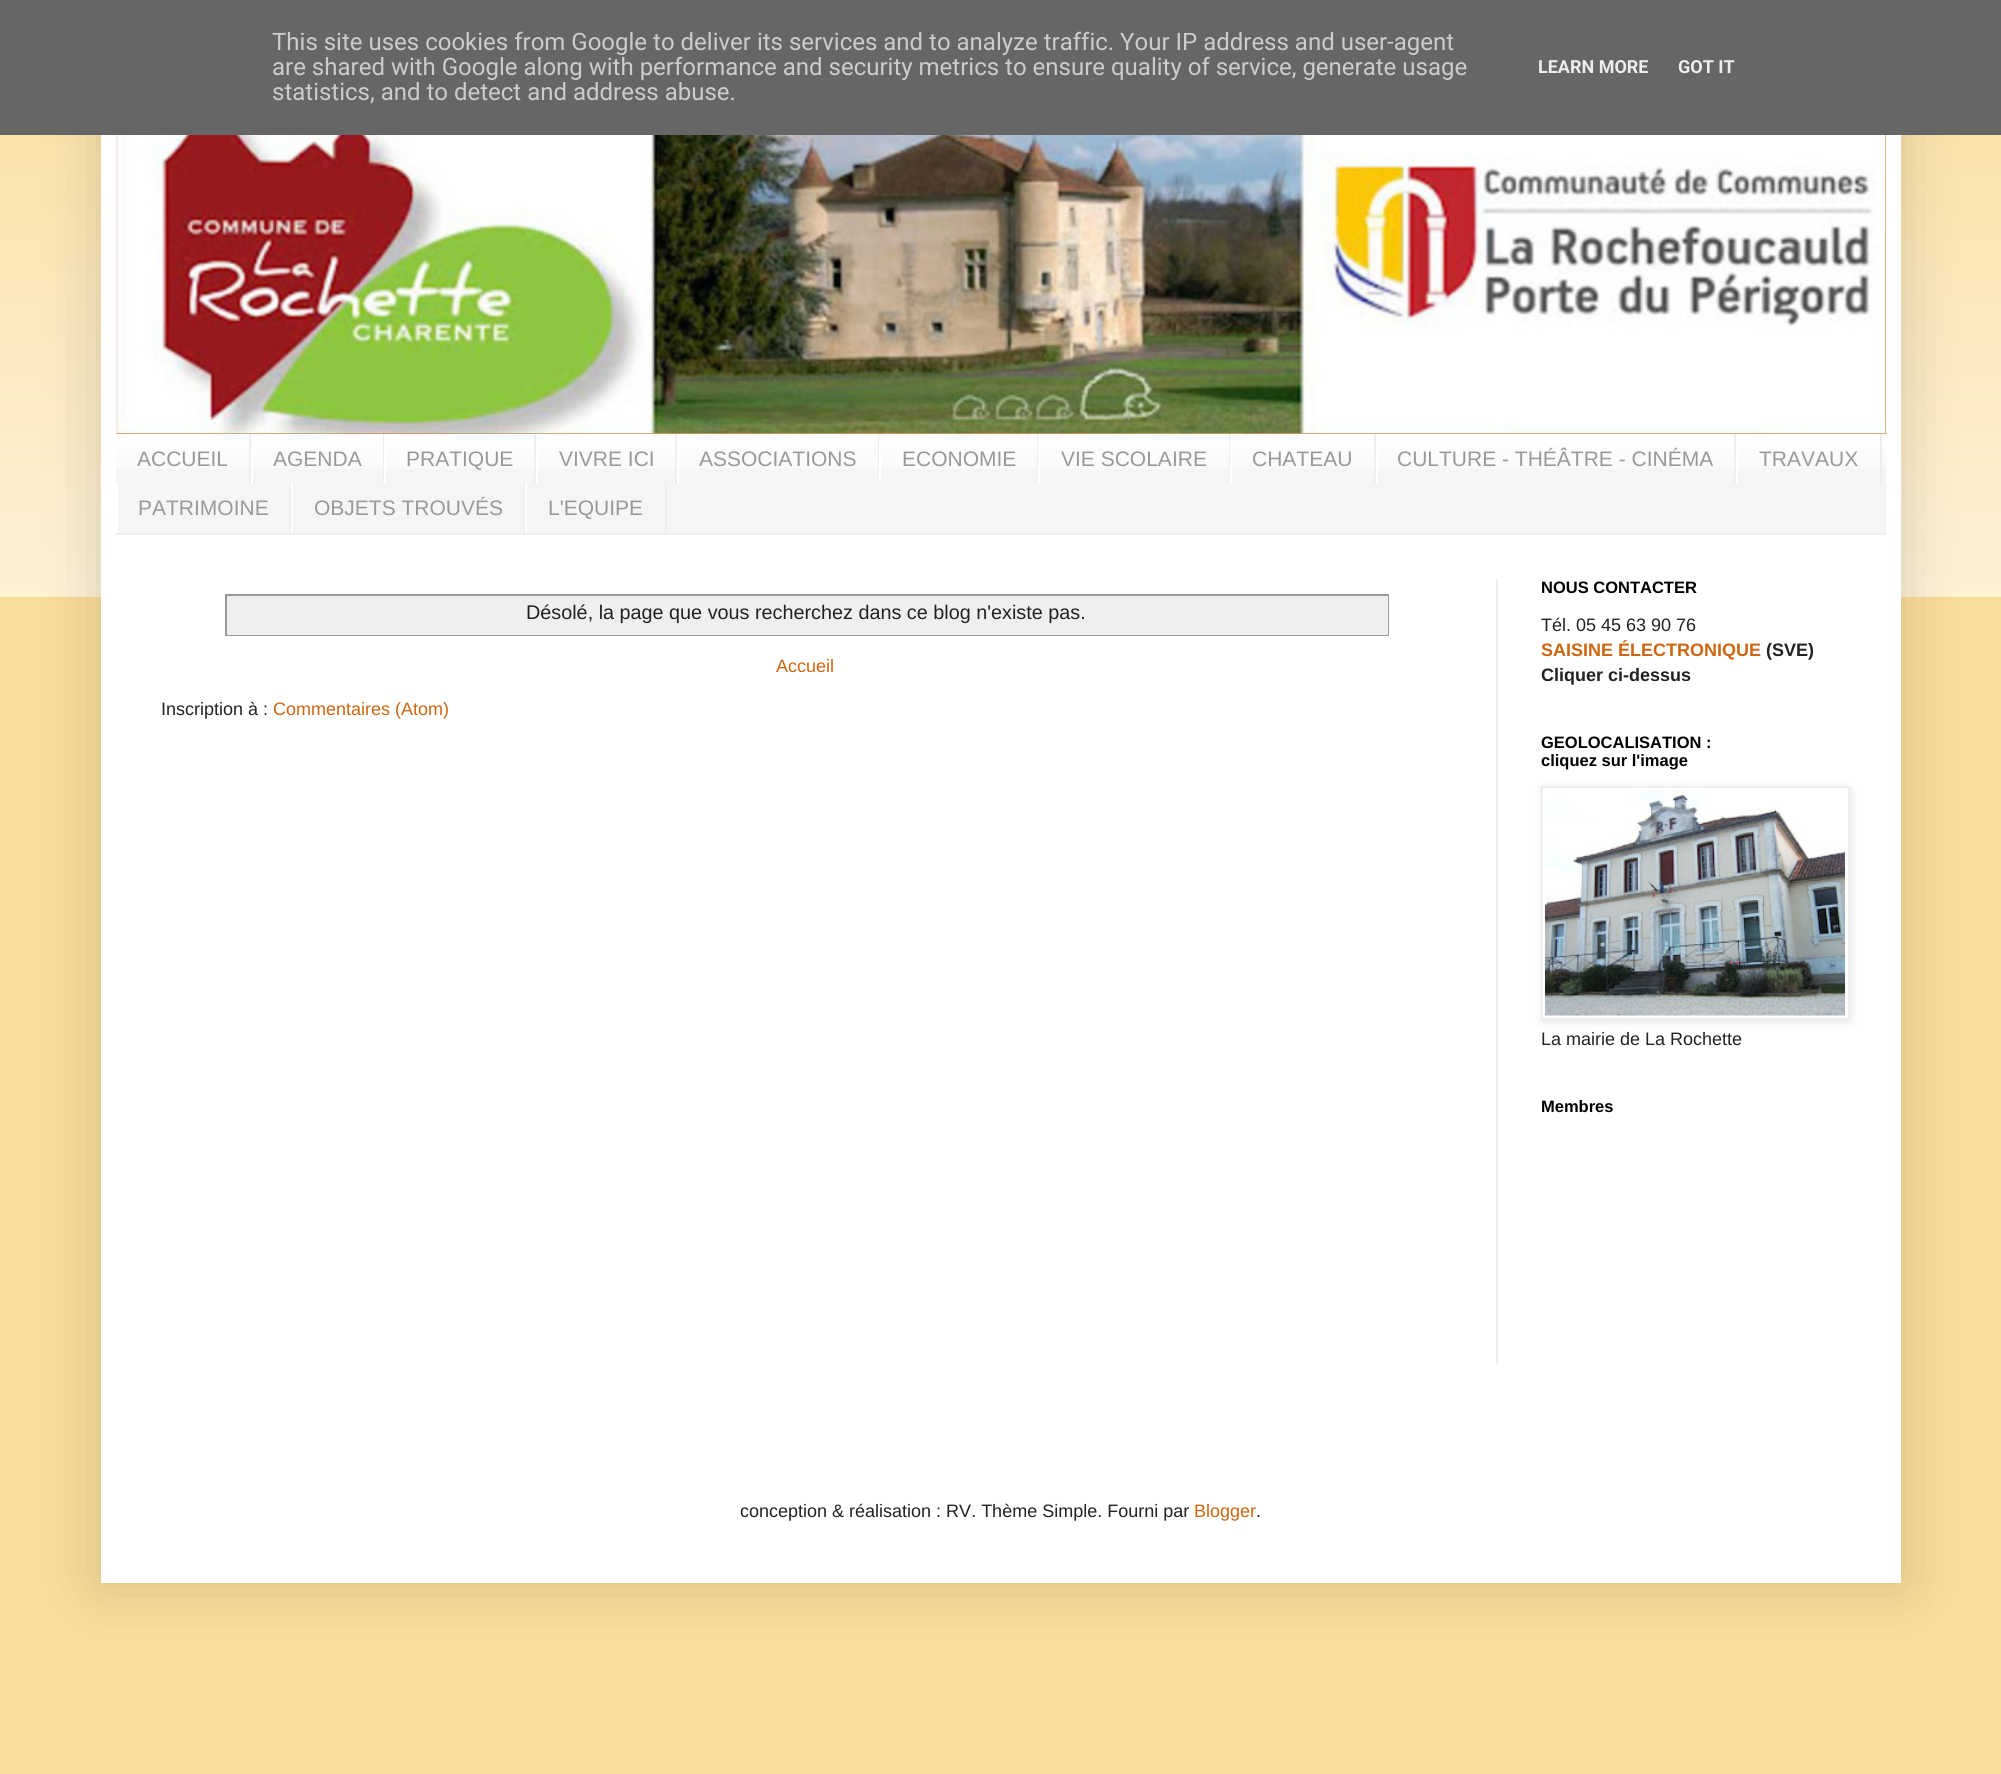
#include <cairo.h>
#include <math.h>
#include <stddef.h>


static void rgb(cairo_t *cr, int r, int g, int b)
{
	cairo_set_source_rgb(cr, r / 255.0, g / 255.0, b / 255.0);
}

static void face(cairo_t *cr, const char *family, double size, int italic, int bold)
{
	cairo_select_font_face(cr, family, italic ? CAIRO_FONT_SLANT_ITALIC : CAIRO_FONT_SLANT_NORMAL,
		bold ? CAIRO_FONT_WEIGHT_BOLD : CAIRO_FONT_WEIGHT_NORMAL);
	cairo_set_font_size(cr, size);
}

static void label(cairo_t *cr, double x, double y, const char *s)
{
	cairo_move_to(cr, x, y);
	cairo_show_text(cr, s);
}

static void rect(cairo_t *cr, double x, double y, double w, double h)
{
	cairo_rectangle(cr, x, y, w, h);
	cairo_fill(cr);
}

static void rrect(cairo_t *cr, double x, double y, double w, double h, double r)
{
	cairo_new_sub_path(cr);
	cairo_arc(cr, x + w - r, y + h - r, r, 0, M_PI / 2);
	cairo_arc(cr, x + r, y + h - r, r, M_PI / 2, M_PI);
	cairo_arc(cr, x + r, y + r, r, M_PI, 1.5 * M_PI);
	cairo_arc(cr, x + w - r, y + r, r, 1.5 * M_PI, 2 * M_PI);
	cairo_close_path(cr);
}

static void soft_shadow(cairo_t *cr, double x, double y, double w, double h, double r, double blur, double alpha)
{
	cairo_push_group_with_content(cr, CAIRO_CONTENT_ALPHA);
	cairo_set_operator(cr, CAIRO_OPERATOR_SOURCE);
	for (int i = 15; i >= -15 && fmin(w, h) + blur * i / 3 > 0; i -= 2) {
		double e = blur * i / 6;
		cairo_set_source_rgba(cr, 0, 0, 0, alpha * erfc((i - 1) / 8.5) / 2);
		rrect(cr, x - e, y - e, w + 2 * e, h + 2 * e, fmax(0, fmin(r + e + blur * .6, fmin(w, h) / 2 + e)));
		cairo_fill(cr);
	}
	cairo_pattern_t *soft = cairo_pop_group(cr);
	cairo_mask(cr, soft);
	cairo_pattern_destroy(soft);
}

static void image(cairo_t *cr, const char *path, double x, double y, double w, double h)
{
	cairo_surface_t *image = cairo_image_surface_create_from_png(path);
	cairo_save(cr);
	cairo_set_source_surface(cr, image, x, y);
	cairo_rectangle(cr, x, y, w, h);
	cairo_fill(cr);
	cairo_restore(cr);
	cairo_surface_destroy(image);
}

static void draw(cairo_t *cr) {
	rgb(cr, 249, 220, 153);
	cairo_paint(cr);
	image(cr, "image0.png", 0, 135, 2001, 462);
	rgb(cr, 0, 0, 0);
	soft_shadow(cr, 101, 42, 1800, 1541, 0, 30, 0.15);
	rgb(cr, 102, 102, 102);
	rect(cr, 0, 0, 2001, 135);
	face(cr, "Roboto", 24, 0, 0);
	rgb(cr, 204, 204, 204);
	label(cr, 272, 50, "This site uses cookies from Google to deliver its services and to analyze traffic. Your IP address and user-agent");
	label(cr, 272, 75, "are shared with Google along with performance and security metrics to ensure quality of service, generate usage");
	label(cr, 272, 100, "statistics, and to detect and address abuse.");
	face(cr, "Roboto", 18, 0, 1);
	rgb(cr, 238, 238, 238);
	label(cr, 1538, 73, "LEARN MORE");
	label(cr, 1678, 73, "GOT IT");
	rgb(cr, 255, 255, 255);
	rect(cr, 101, 135, 1800, 1448);
	rgb(cr, 204, 102, 17);
	rect(cr, 116, 135, 1770, 299);
	image(cr, "image1.png", 1885, 135, 1, 98);
	image(cr, "image2.png", 115, 135, 1771, 299);
	rgb(cr, 245, 245, 245);
	rect(cr, 116, 434, 1770, 99);
	image(cr, "image3.png", 116, 433, 1770, 36);
	rgb(cr, 238, 238, 238);
	rect(cr, 116, 533, 1770, 2);
	rect(cr, 249, 434, 2, 49);
	face(cr, "Liberation Sans", 21, 0, 0);
	rgb(cr, 153, 153, 153);
	label(cr, 137, 466, "ACCUEIL");
	rgb(cr, 238, 238, 238);
	rect(cr, 383, 434, 1, 49);
	rgb(cr, 255, 255, 255);
	rect(cr, 251, 450, 2, 33);
	rgb(cr, 153, 153, 153);
	label(cr, 273, 466, "AGENDA");
	rgb(cr, 238, 238, 238);
	rect(cr, 534, 434, 2, 49);
	rgb(cr, 255, 255, 255);
	rect(cr, 384, 450, 2, 33);
	rgb(cr, 153, 153, 153);
	label(cr, 406, 466, "PRATIQUE");
	rgb(cr, 238, 238, 238);
	rect(cr, 675, 434, 2, 49);
	rgb(cr, 255, 255, 255);
	rect(cr, 536, 450, 2, 33);
	rgb(cr, 153, 153, 153);
	label(cr, 559, 466, "VIVRE ICI");
	rgb(cr, 238, 238, 238);
	rect(cr, 878, 434, 1, 49);
	rgb(cr, 255, 255, 255);
	rect(cr, 677, 450, 2, 33);
	rgb(cr, 153, 153, 153);
	label(cr, 699, 466, "ASSOCIATIONS");
	rgb(cr, 238, 238, 238);
	rect(cr, 1037, 434, 1, 49);
	rgb(cr, 255, 255, 255);
	rect(cr, 879, 450, 2, 33);
	rgb(cr, 153, 153, 153);
	label(cr, 902, 466, "ECONOMIE");
	rgb(cr, 238, 238, 238);
	rect(cr, 1229, 434, 1, 49);
	rgb(cr, 255, 255, 255);
	rect(cr, 1038, 450, 2, 33);
	rgb(cr, 153, 153, 153);
	label(cr, 1061, 466, "VIE SCOLAIRE");
	rgb(cr, 238, 238, 238);
	rect(cr, 1374, 434, 2, 49);
	rgb(cr, 255, 255, 255);
	rect(cr, 1230, 450, 2, 33);
	rgb(cr, 153, 153, 153);
	label(cr, 1252, 466, "CHATEAU");
	rgb(cr, 238, 238, 238);
	rect(cr, 1734, 434, 2, 49);
	rgb(cr, 255, 255, 255);
	rect(cr, 1376, 450, 2, 33);
	rgb(cr, 153, 153, 153);
	label(cr, 1397, 466, "CULTURE - THÉÂTRE - CINÉMA");
	rgb(cr, 238, 238, 238);
	rect(cr, 1880, 434, 2, 49);
	rgb(cr, 255, 255, 255);
	rect(cr, 1736, 450, 2, 33);
	rgb(cr, 153, 153, 153);
	label(cr, 1759, 466, "TRAVAUX");
	rgb(cr, 238, 238, 238);
	rect(cr, 290, 483, 1, 50);
	rgb(cr, 255, 255, 255);
	rect(cr, 116, 483, 2, 50);
	rgb(cr, 153, 153, 153);
	label(cr, 138, 515, "PATRIMOINE");
	rgb(cr, 238, 238, 238);
	rect(cr, 524, 483, 1, 50);
	rgb(cr, 255, 255, 255);
	rect(cr, 291, 483, 2, 50);
	rgb(cr, 153, 153, 153);
	label(cr, 314, 515, "OBJETS TROUVÉS");
	rgb(cr, 238, 238, 238);
	rect(cr, 665, 483, 2, 50);
	rgb(cr, 255, 255, 255);
	rect(cr, 525, 483, 2, 50);
	rgb(cr, 153, 153, 153);
	label(cr, 548, 515, "L'EQUIPE");
	rgb(cr, 238, 238, 238);
	rect(cr, 1496, 579, 2, 785);
	cairo_rectangle(cr, 226, 595, 1162, 40);
	rgb(cr, 153, 153, 153);
	cairo_stroke(cr);
	rgb(cr, 239, 239, 239);
	rect(cr, 227, 596, 1161, 39);
	face(cr, "Liberation Sans", 19.8, 0, 0);
	rgb(cr, 34, 34, 34);
	label(cr, 526, 619, "Désolé, la page que vous recherchez dans ce blog n'existe pas.");
	face(cr, "Liberation Sans", 18, 0, 0);
	rgb(cr, 204, 102, 17);
	label(cr, 776, 672, "Accueil");
	rgb(cr, 34, 34, 34);
	label(cr, 161, 715, "Inscription à :");
	rgb(cr, 204, 102, 17);
	label(cr, 273, 715, "Commentaires (Atom)");
	face(cr, "Liberation Sans", 16.5, 0, 1);
	rgb(cr, 0, 0, 0);
	label(cr, 1541, 593, "NOUS CONTACTER");
	face(cr, "Liberation Sans", 18, 0, 0);
	rgb(cr, 34, 34, 34);
	label(cr, 1541, 631, "Tél. 05 45 63 90 76");
	face(cr, "Liberation Sans", 18, 0, 1);
	rgb(cr, 204, 102, 17);
	label(cr, 1541, 656, "SAISINE ÉLECTRONIQUE");
	rgb(cr, 34, 34, 34);
	label(cr, 1766, 656, "(SVE)");
	label(cr, 1541, 681, "Cliquer ci-dessus");
	face(cr, "Liberation Sans", 16.5, 0, 1);
	rgb(cr, 0, 0, 0);
	label(cr, 1541, 748, "GEOLOCALISATION :");
	label(cr, 1541, 766, "cliquez sur l'image");
	rgb(cr, 0, 0, 0);
	soft_shadow(cr, 1542, 788, 309, 234, 0, 4, 0.1);
	rgb(cr, 255, 255, 255);
	cairo_rectangle(cr, 1542, 787, 307, 232);
	cairo_fill_preserve(cr);
	rgb(cr, 238, 238, 238);
	cairo_stroke(cr);
	image(cr, "image4.png", 1545, 790, 300, 226);
	face(cr, "Liberation Sans", 18, 0, 0);
	rgb(cr, 34, 34, 34);
	label(cr, 1541, 1045, "La mairie de La Rochette");
	face(cr, "Liberation Sans", 16.5, 0, 1);
	rgb(cr, 0, 0, 0);
	label(cr, 1541, 1112, "Membres");
	face(cr, "Liberation Sans", 18, 0, 0);
	rgb(cr, 34, 34, 34);
	label(cr, 740, 1517, "conception & réalisation : RV. Thème Simple. Fourni par");
	rgb(cr, 204, 102, 17);
	label(cr, 1194, 1517, "Blogger");
	rgb(cr, 34, 34, 34);
	label(cr, 1256, 1517, ".");
}

int main(void) {
	cairo_surface_t *surface = cairo_image_surface_create(CAIRO_FORMAT_RGB24, 2001, 1774);
	cairo_t *cr = cairo_create(surface);
	cairo_font_options_t *options = cairo_font_options_create();
	cairo_font_options_set_hint_metrics(options, CAIRO_HINT_METRICS_OFF);
	cairo_font_options_set_hint_style(options, CAIRO_HINT_STYLE_NONE);
	cairo_set_font_options(cr, options);
	cairo_set_miter_limit(cr, 4);
	draw(cr);
	cairo_surface_write_to_png(surface, "render.png");
	cairo_font_options_destroy(options);
	cairo_destroy(cr);
	cairo_surface_destroy(surface);
	return 0;
}
